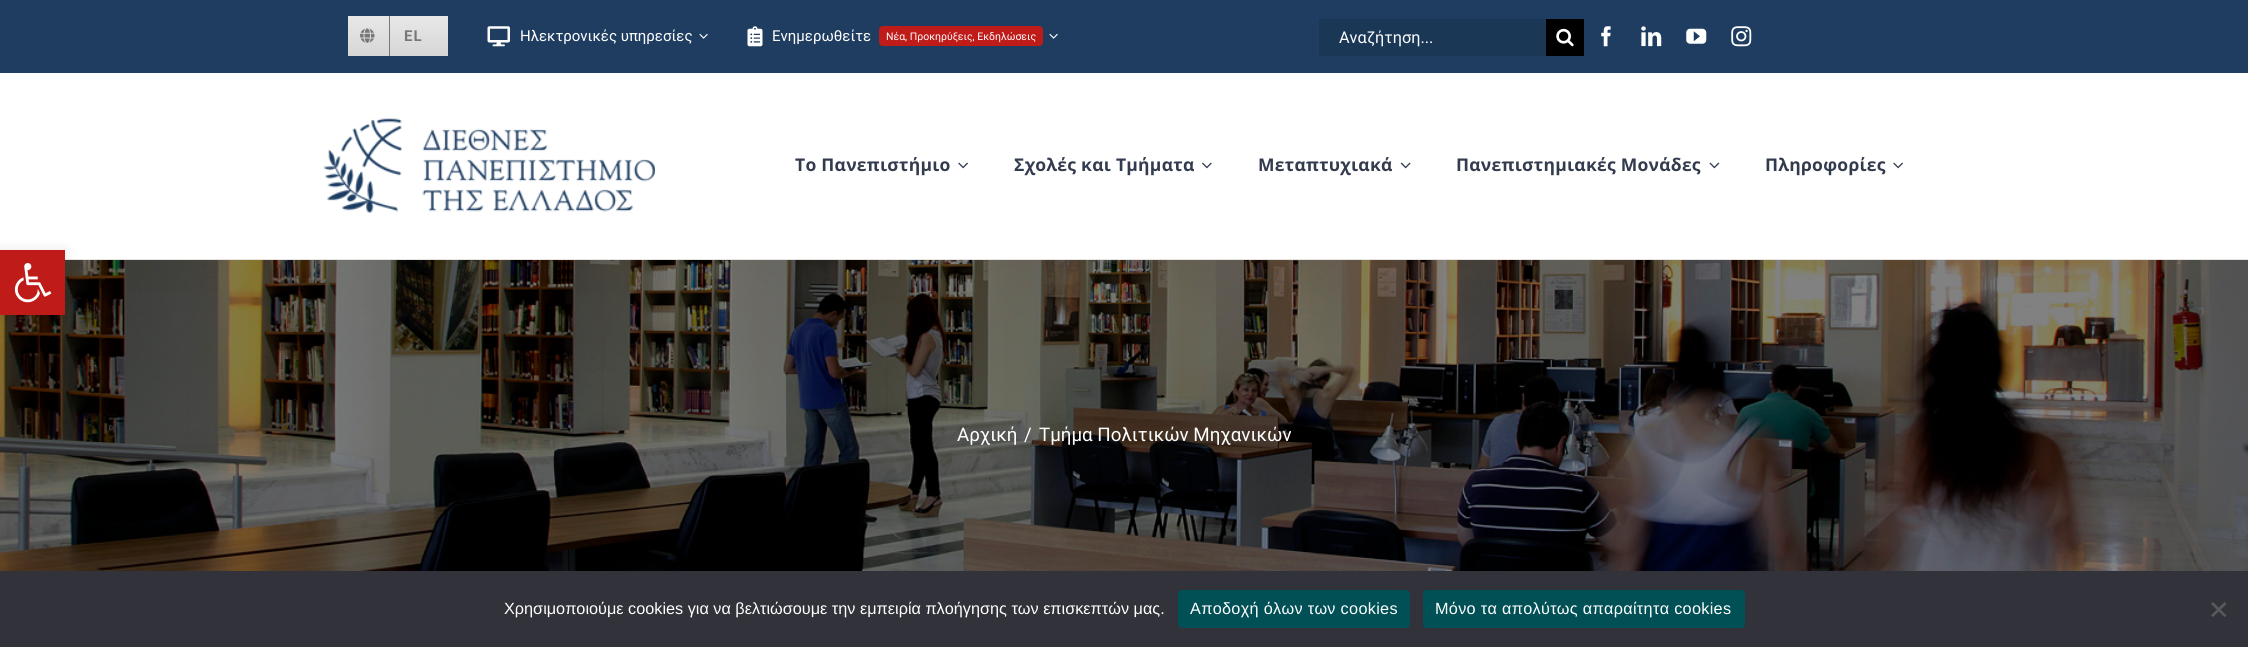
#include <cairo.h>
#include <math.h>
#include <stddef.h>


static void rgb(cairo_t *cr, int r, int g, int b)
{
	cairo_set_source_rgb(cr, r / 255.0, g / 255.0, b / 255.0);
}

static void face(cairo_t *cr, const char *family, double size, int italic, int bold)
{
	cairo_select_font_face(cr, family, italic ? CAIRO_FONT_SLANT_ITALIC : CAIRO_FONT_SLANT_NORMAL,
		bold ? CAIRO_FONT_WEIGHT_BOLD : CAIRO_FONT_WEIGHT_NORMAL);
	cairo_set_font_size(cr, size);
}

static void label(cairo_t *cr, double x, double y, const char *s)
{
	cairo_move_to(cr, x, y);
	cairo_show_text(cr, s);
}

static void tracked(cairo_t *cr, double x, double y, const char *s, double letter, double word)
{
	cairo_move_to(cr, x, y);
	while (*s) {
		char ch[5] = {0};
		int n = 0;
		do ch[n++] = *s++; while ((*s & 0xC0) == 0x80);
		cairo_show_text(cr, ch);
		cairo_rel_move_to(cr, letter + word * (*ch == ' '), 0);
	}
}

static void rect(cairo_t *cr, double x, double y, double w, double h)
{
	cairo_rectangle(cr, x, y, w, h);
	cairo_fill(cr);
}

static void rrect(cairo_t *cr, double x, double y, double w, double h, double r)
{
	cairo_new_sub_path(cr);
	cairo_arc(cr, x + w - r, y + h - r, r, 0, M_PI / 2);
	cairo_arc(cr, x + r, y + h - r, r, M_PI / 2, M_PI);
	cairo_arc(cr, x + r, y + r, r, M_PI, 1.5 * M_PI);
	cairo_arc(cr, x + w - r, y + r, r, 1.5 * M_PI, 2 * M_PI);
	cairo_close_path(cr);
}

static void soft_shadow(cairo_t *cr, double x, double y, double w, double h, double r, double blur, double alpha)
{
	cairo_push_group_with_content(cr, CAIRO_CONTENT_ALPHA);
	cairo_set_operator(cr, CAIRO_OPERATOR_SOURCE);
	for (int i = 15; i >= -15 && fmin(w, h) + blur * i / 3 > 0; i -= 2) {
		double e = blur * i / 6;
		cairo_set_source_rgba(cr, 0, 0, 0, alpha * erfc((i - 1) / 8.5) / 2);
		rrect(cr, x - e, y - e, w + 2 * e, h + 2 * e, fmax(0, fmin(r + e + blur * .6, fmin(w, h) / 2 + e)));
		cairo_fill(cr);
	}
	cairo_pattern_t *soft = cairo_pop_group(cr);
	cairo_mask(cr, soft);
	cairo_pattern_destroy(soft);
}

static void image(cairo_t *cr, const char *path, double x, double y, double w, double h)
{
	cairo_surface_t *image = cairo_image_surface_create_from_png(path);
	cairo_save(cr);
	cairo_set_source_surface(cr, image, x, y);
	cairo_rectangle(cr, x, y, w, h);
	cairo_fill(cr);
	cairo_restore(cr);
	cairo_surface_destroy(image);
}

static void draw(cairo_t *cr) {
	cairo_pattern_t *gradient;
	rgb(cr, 255, 255, 255);
	cairo_paint(cr);
	rgb(cr, 231, 228, 226);
	rect(cr, 65, 259, 2183, 1);
	image(cr, "image15.png", 0, 260, 2248, 311);
	rgb(cr, 0, 0, 0);
	soft_shadow(cr, 0, 250, 65, 65, 0, 6, 0.1);
	rgb(cr, 190, 27, 25);
	rect(cr, 0, 250, 65, 65);
	image(cr, "image0.png", 14, 263, 38, 40);
	rgb(cr, 30, 61, 97);
	rect(cr, 0, 0, 2248, 73);
	gradient = cairo_pattern_create_linear(398, 16, 398, 56);
	cairo_pattern_add_color_stop_rgba(gradient, 0, 0.91, 0.91, 0.91, 1);
	cairo_pattern_add_color_stop_rgba(gradient, 1, 0.839, 0.839, 0.839, 1);
	cairo_set_source(cr, gradient);
	cairo_pattern_destroy(gradient);
	rect(cr, 348, 16, 100, 40);
	rgb(cr, 120, 120, 120);
	rect(cr, 389, 16, 1, 40);
	image(cr, "image1.png", 360, 28, 15, 15);
	face(cr, "Roboto", 15, 0, 1);
	tracked(cr, 404, 41, "EL", 1, 0);
	image(cr, "image2.png", 487, 26, 23, 21);
	face(cr, "Roboto", 15, 0, 0);
	rgb(cr, 255, 255, 255);
	label(cr, 520, 41, "Ηλεκτρονικές υπηρεσίες");
	image(cr, "image3.png", 699, 33, 9, 6);
	image(cr, "image4.png", 747, 26, 16, 21);
	label(cr, 772, 41, "Ενημερωθείτε");
	rgb(cr, 190, 27, 25);
	rrect(cr, 879, 26, 164, 20, 4);
	cairo_fill(cr);
	face(cr, "Roboto", 10.5, 0, 0);
	rgb(cr, 255, 255, 255);
	label(cr, 886, 40, "Νέα, Προκηρύξεις, Εκδηλώσεις");
	image(cr, "image3.png", 1049, 33, 9, 6);
	rgb(cr, 27, 55, 86);
	rect(cr, 1319, 19, 227, 37);
	face(cr, "Roboto", 16.25, 0, 0);
	rgb(cr, 255, 255, 255);
	label(cr, 1339, 43, "Αναζήτηση...");
	rgb(cr, 0, 0, 0);
	rect(cr, 1546, 19, 38, 37);
	image(cr, "image5.png", 1556, 28, 18, 19);
	image(cr, "image6.png", 1601, 26, 10, 21);
	image(cr, "image7.png", 1641, 26, 21, 21);
	image(cr, "image8.png", 1686, 28, 21, 16);
	image(cr, "image9.png", 1731, 26, 21, 21);
	image(cr, "image10.png", 323, 118, 332, 95);
	face(cr, "Open Sans", 17.5, 0, 1);
	rgb(cr, 51, 60, 78);
	tracked(cr, 795, 171, "Το Πανεπιστήμιο", 0.25, 0);
	image(cr, "image11.png", 958, 162, 10, 7);
	tracked(cr, 1014, 171, "Σχολές και Τμήματα", 0.25, 0);
	image(cr, "image12.png", 1202, 162, 10, 7);
	tracked(cr, 1258, 171, "Μεταπτυχιακά", 0.25, 0);
	image(cr, "image13.png", 1400, 162, 11, 7);
	tracked(cr, 1456, 171, "Πανεπιστημιακές Μονάδες", 0.25, 0);
	image(cr, "image14.png", 1709, 162, 11, 7);
	tracked(cr, 1765, 171, "Πληροφορίες", 0.25, 0);
	image(cr, "image11.png", 1893, 162, 10, 7);
	face(cr, "Roboto", 18.75, 0, 0);
	rgb(cr, 255, 255, 255);
	label(cr, 957, 441, "Αρχική");
	label(cr, 1024, 441, "/");
	label(cr, 1039, 441, "Τμήμα Πολιτικών Μηχανικών");
	rgb(cr, 50, 50, 58);
	rect(cr, 0, 571, 2248, 76);
	face(cr, "Liberation Sans", 16.25, 0, 0);
	rgb(cr, 255, 255, 255);
	label(cr, 504, 614, "Χρησιμοποιούμε cookies για να βελτιώσουμε την εμπειρία πλοήγησης των επισκεπτών μας.");
	rgb(cr, 0, 80, 86);
	rrect(cr, 1178, 590, 232, 38, 4);
	cairo_fill(cr);
	rgb(cr, 255, 255, 255);
	tracked(cr, 1190, 614, "Αποδοχή όλων των cookies", 0.3, 0);
	rgb(cr, 0, 80, 86);
	rrect(cr, 1423, 590, 322, 38, 4);
	cairo_fill(cr);
	rgb(cr, 255, 255, 255);
	tracked(cr, 1435, 614, "Μόνο τα απολύτως απαραίτητα cookies", 0.3, 0);
	rgb(cr, 89, 89, 93);
	cairo_new_path(cr);
	cairo_move_to(cr, 2224.5, 602);
	cairo_line_to(cr, 2226.5, 604);
	cairo_line_to(cr, 2213, 617);
	cairo_line_to(cr, 2211, 615.5);
	cairo_close_path(cr);
	cairo_fill(cr);
	cairo_new_path(cr);
	cairo_move_to(cr, 2211, 604);
	cairo_line_to(cr, 2213, 602);
	cairo_line_to(cr, 2226.5, 615.5);
	cairo_line_to(cr, 2224.5, 617);
	cairo_close_path(cr);
	cairo_fill(cr);
}

int main(void) {
	cairo_surface_t *surface = cairo_image_surface_create(CAIRO_FORMAT_RGB24, 2248, 647);
	cairo_t *cr = cairo_create(surface);
	cairo_font_options_t *options = cairo_font_options_create();
	cairo_font_options_set_hint_metrics(options, CAIRO_HINT_METRICS_OFF);
	cairo_font_options_set_hint_style(options, CAIRO_HINT_STYLE_NONE);
	cairo_set_font_options(cr, options);
	cairo_set_miter_limit(cr, 4);
	draw(cr);
	cairo_surface_write_to_png(surface, "render.png");
	cairo_font_options_destroy(options);
	cairo_destroy(cr);
	cairo_surface_destroy(surface);
	return 0;
}
